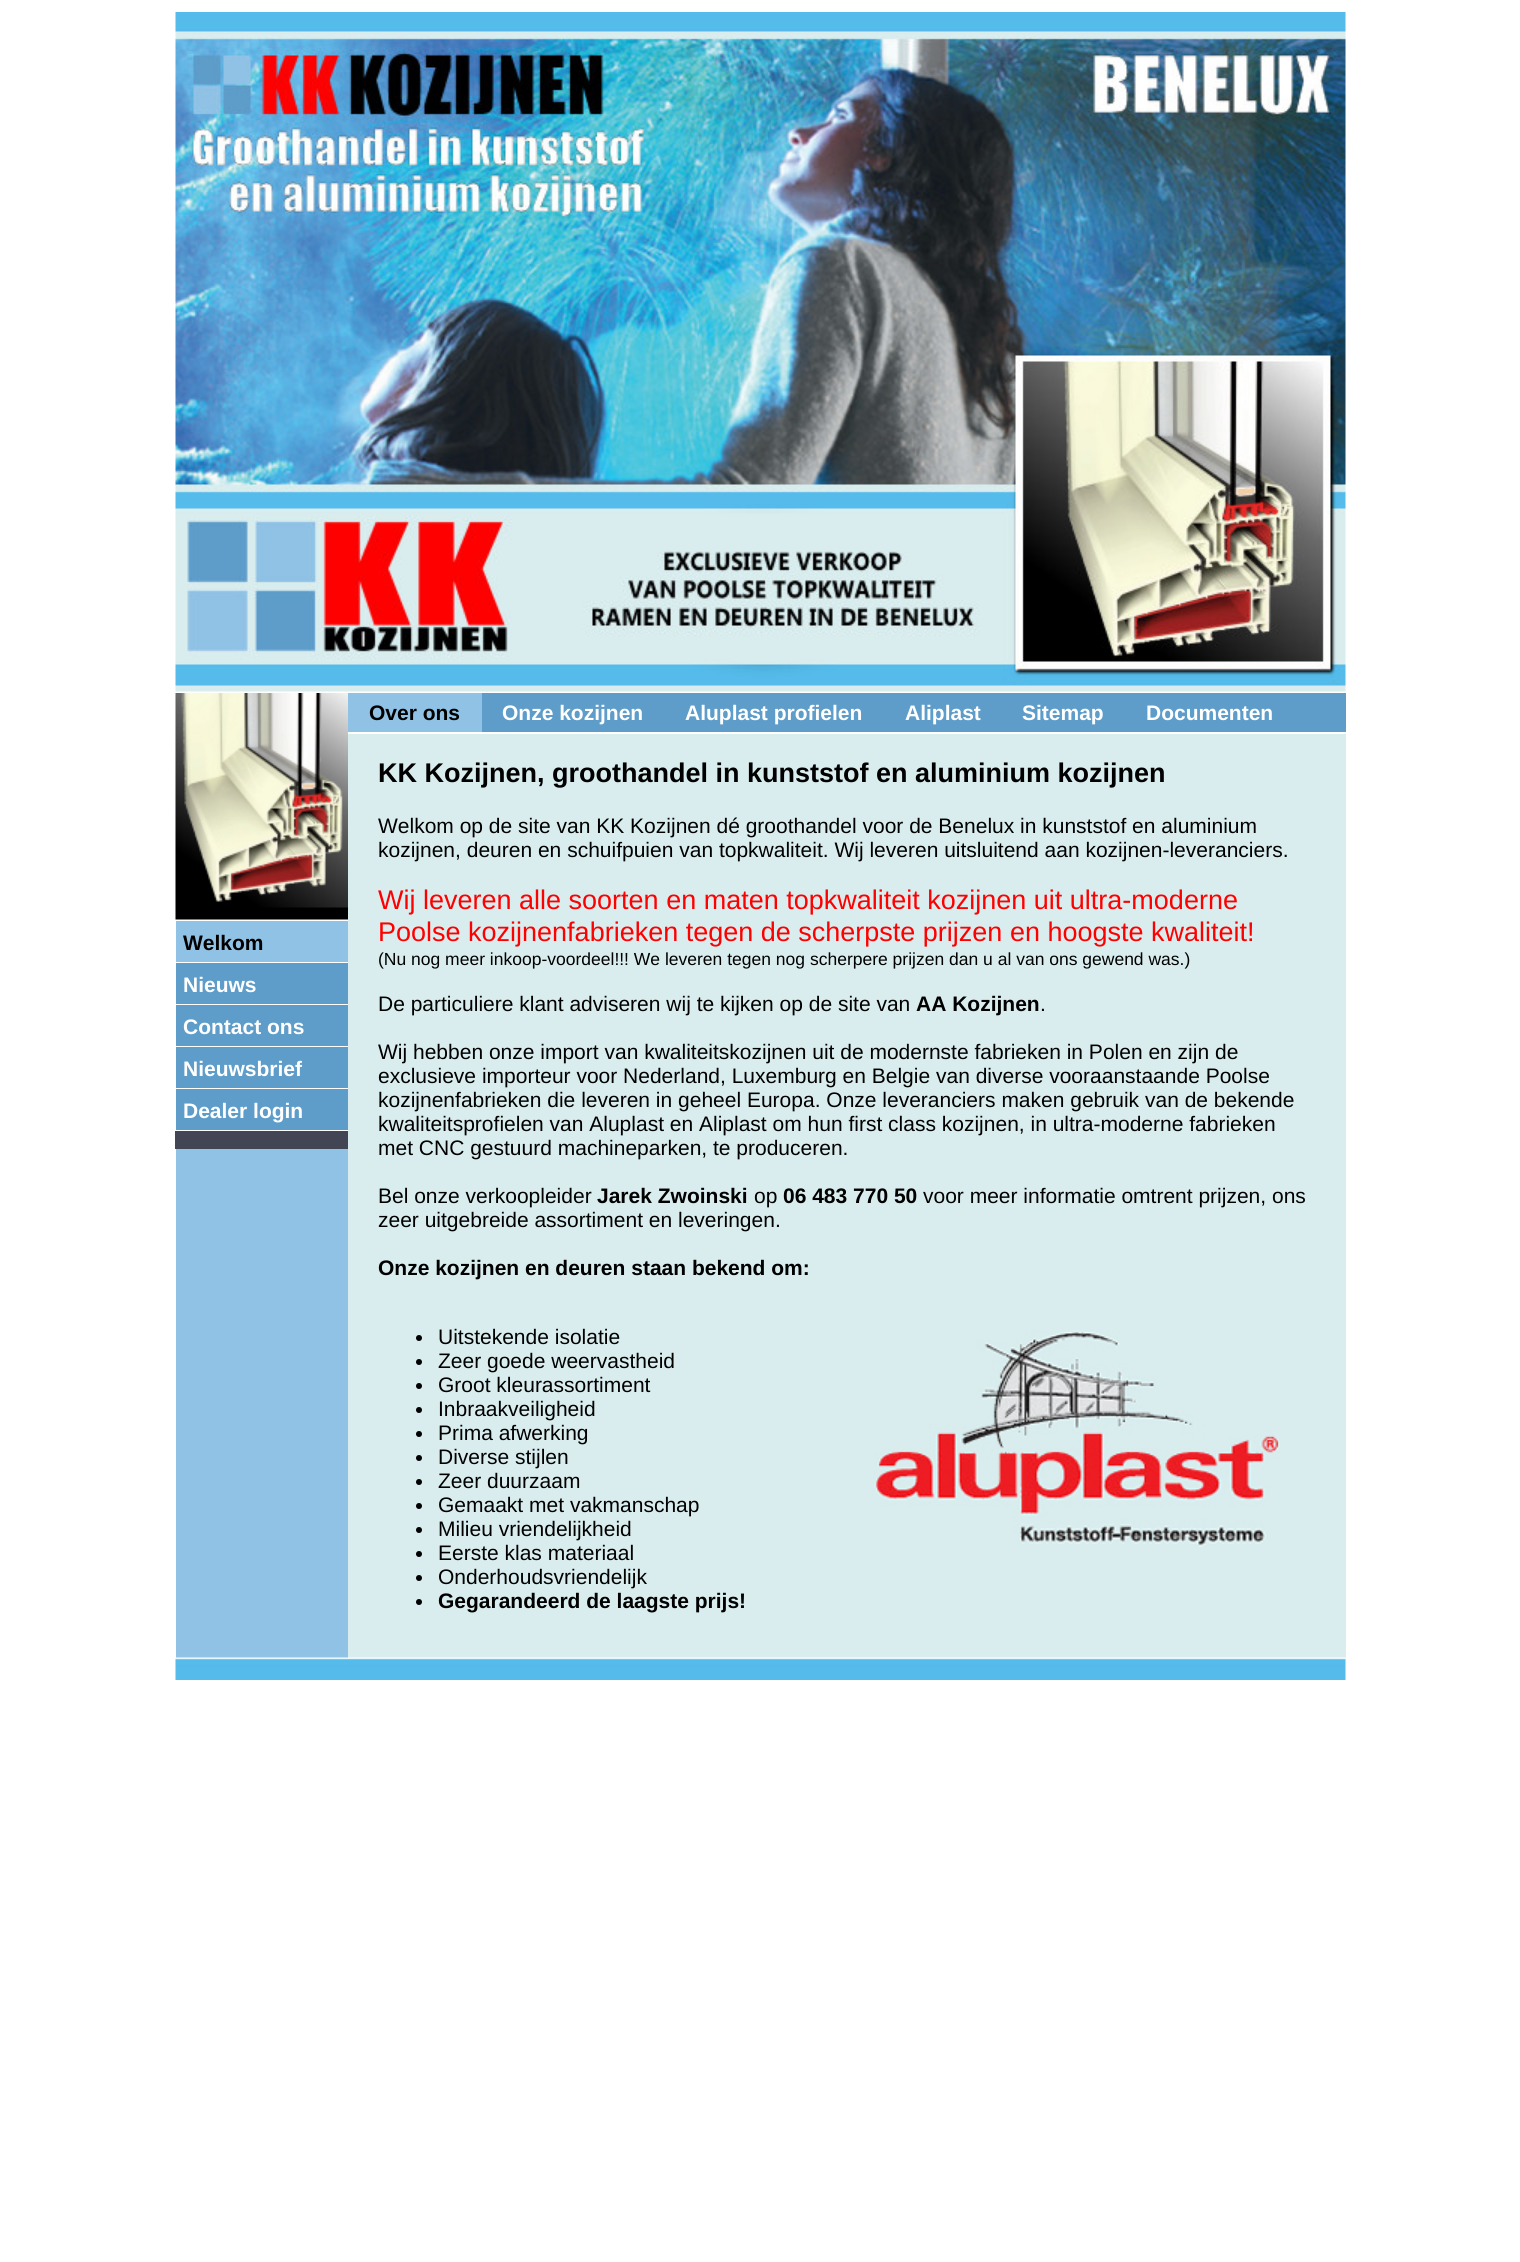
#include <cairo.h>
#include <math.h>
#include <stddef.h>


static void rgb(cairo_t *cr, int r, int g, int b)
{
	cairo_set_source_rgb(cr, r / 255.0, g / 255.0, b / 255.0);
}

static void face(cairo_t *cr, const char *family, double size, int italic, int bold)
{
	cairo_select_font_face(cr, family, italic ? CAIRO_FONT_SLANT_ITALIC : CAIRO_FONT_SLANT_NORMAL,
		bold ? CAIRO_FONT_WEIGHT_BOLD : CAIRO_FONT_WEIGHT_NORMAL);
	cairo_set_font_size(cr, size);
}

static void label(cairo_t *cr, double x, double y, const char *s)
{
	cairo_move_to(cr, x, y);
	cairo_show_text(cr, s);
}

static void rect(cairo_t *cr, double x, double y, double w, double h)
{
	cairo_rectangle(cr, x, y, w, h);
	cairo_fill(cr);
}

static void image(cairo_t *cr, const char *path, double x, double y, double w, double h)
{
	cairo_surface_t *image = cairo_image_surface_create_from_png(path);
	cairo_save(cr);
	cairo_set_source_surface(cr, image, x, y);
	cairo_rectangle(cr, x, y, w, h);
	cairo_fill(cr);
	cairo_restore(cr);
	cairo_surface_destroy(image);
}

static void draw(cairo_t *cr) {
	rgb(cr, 255, 255, 255);
	cairo_paint(cr);
	image(cr, "image0.png", 175, 12, 1171, 680);
	rgb(cr, 217, 237, 239);
	rect(cr, 348, 734, 998, 924);
	image(cr, "image1.png", 175, 693, 173, 39);
	rgb(cr, 94, 157, 202);
	rect(cr, 482, 693, 864, 39);
	rgb(cr, 144, 194, 229);
	rect(cr, 348, 693, 134, 39);
	face(cr, "Liberation Sans", 21, 0, 1);
	rgb(cr, 0, 0, 0);
	label(cr, 369, 720, "Over ons");
	rgb(cr, 255, 255, 255);
	label(cr, 502, 720, "Onze kozijnen");
	label(cr, 685, 720, "Aluplast profielen");
	label(cr, 905, 720, "Aliplast");
	label(cr, 1022, 720, "Sitemap");
	label(cr, 1146, 720, "Documenten");
	rgb(cr, 144, 194, 229);
	rect(cr, 176, 1149, 172, 509);
	image(cr, "image2.png", 175, 732, 173, 189);
	rect(cr, 176, 921, 172, 41);
	rgb(cr, 0, 0, 0);
	label(cr, 183, 950, "Welkom");
	rgb(cr, 94, 157, 202);
	rect(cr, 176, 963, 172, 41);
	rgb(cr, 255, 255, 255);
	label(cr, 183, 992, "Nieuws");
	rgb(cr, 94, 157, 202);
	rect(cr, 176, 1005, 172, 41);
	rgb(cr, 255, 255, 255);
	label(cr, 183, 1034, "Contact ons");
	rgb(cr, 94, 157, 202);
	rect(cr, 176, 1047, 172, 41);
	rgb(cr, 255, 255, 255);
	label(cr, 183, 1076, "Nieuwsbrief");
	rgb(cr, 94, 157, 202);
	rect(cr, 176, 1089, 172, 41);
	rgb(cr, 255, 255, 255);
	label(cr, 183, 1118, "Dealer login");
	rgb(cr, 66, 69, 84);
	rect(cr, 175, 1131, 173, 18);
	face(cr, "Liberation Sans", 27, 0, 1);
	rgb(cr, 0, 0, 0);
	label(cr, 378, 782, "KK Kozijnen, groothandel in kunststof en aluminium kozijnen");
	face(cr, "Liberation Sans", 21, 0, 0);
	label(cr, 378, 833, "Welkom op de site van KK Kozijnen dé groothandel voor de Benelux in kunststof en aluminium");
	label(cr, 378, 857, "kozijnen, deuren en schuifpuien van topkwaliteit. Wij leveren uitsluitend aan kozijnen-leveranciers.");
	face(cr, "Liberation Sans", 27, 0, 0);
	rgb(cr, 255, 0, 0);
	label(cr, 378, 909, "Wij leveren alle soorten en maten topkwaliteit kozijnen uit ultra-moderne");
	label(cr, 378, 941, "Poolse kozijnenfabrieken tegen de scherpste prijzen en hoogste kwaliteit!");
	face(cr, "Liberation Sans", 17.5, 0, 0);
	rgb(cr, 0, 0, 0);
	label(cr, 378, 965, "(Nu nog meer inkoop-voordeel!!! We leveren tegen nog scherpere prijzen dan u al van ons gewend was.)");
	face(cr, "Liberation Sans", 21, 0, 0);
	label(cr, 378, 1011, "De particuliere klant adviseren wij te kijken op de site van");
	face(cr, "Liberation Sans", 21, 0, 1);
	label(cr, 916, 1011, "AA Kozijnen");
	face(cr, "Liberation Sans", 21, 0, 0);
	label(cr, 1040, 1011, ".");
	label(cr, 378, 1059, "Wij hebben onze import van kwaliteitskozijnen uit de modernste fabrieken in Polen en zijn de");
	label(cr, 378, 1083, "exclusieve importeur voor Nederland, Luxemburg en Belgie van diverse vooraanstaande Poolse");
	label(cr, 378, 1107, "kozijnenfabrieken die leveren in geheel Europa. Onze leveranciers maken gebruik van de bekende");
	label(cr, 378, 1131, "kwaliteitsprofielen van Aluplast en Aliplast om hun first class kozijnen, in ultra-moderne fabrieken");
	label(cr, 378, 1155, "met CNC gestuurd machineparken, te produceren.");
	label(cr, 378, 1203, "Bel onze verkoopleider");
	face(cr, "Liberation Sans", 21, 0, 1);
	label(cr, 597, 1203, "Jarek Zwoinski");
	face(cr, "Liberation Sans", 21, 0, 0);
	label(cr, 754, 1203, "op");
	face(cr, "Liberation Sans", 21, 0, 1);
	label(cr, 783, 1203, "06 483 770 50");
	face(cr, "Liberation Sans", 21, 0, 0);
	label(cr, 923, 1203, "voor meer informatie omtrent prijzen, ons");
	label(cr, 378, 1227, "zeer uitgebreide assortiment en leveringen.");
	face(cr, "Liberation Sans", 21, 0, 1);
	label(cr, 378, 1275, "Onze kozijnen en deuren staan bekend om:");
	cairo_new_path(cr);
	cairo_arc(cr, 419, 1338, 3, 0, 2 * M_PI);
	cairo_fill(cr);
	face(cr, "Liberation Sans", 21, 0, 0);
	label(cr, 438, 1344, "Uitstekende isolatie");
	cairo_new_path(cr);
	cairo_arc(cr, 419, 1362, 3, 0, 2 * M_PI);
	cairo_fill(cr);
	label(cr, 438, 1368, "Zeer goede weervastheid");
	cairo_new_path(cr);
	cairo_arc(cr, 419, 1386, 3, 0, 2 * M_PI);
	cairo_fill(cr);
	label(cr, 438, 1392, "Groot kleurassortiment");
	cairo_new_path(cr);
	cairo_arc(cr, 419, 1410, 3, 0, 2 * M_PI);
	cairo_fill(cr);
	label(cr, 438, 1416, "Inbraakveiligheid");
	cairo_new_path(cr);
	cairo_arc(cr, 419, 1434, 3, 0, 2 * M_PI);
	cairo_fill(cr);
	label(cr, 438, 1440, "Prima afwerking");
	cairo_new_path(cr);
	cairo_arc(cr, 419, 1458, 3, 0, 2 * M_PI);
	cairo_fill(cr);
	label(cr, 438, 1464, "Diverse stijlen");
	cairo_new_path(cr);
	cairo_arc(cr, 419, 1482, 3, 0, 2 * M_PI);
	cairo_fill(cr);
	label(cr, 438, 1488, "Zeer duurzaam");
	cairo_new_path(cr);
	cairo_arc(cr, 419, 1506, 3, 0, 2 * M_PI);
	cairo_fill(cr);
	label(cr, 438, 1512, "Gemaakt met vakmanschap");
	cairo_new_path(cr);
	cairo_arc(cr, 419, 1530, 3, 0, 2 * M_PI);
	cairo_fill(cr);
	label(cr, 438, 1536, "Milieu vriendelijkheid");
	cairo_new_path(cr);
	cairo_arc(cr, 419, 1554, 3, 0, 2 * M_PI);
	cairo_fill(cr);
	label(cr, 438, 1560, "Eerste klas materiaal");
	cairo_new_path(cr);
	cairo_arc(cr, 419, 1578, 3, 0, 2 * M_PI);
	cairo_fill(cr);
	label(cr, 438, 1584, "Onderhoudsvriendelijk");
	cairo_new_path(cr);
	cairo_arc(cr, 419, 1602, 3, 0, 2 * M_PI);
	cairo_fill(cr);
	face(cr, "Liberation Sans", 21, 0, 1);
	label(cr, 438, 1608, "Gegarandeerd de laagste prijs!");
	image(cr, "image3.png", 874, 1330, 406, 217);
	image(cr, "image4.png", 175, 1657, 1171, 23);
}

int main(void) {
	cairo_surface_t *surface = cairo_image_surface_create(CAIRO_FORMAT_RGB24, 1520, 2262);
	cairo_t *cr = cairo_create(surface);
	cairo_font_options_t *options = cairo_font_options_create();
	cairo_font_options_set_hint_metrics(options, CAIRO_HINT_METRICS_OFF);
	cairo_font_options_set_hint_style(options, CAIRO_HINT_STYLE_NONE);
	cairo_set_font_options(cr, options);
	cairo_set_miter_limit(cr, 4);
	draw(cr);
	cairo_surface_write_to_png(surface, "render.png");
	cairo_font_options_destroy(options);
	cairo_destroy(cr);
	cairo_surface_destroy(surface);
	return 0;
}
